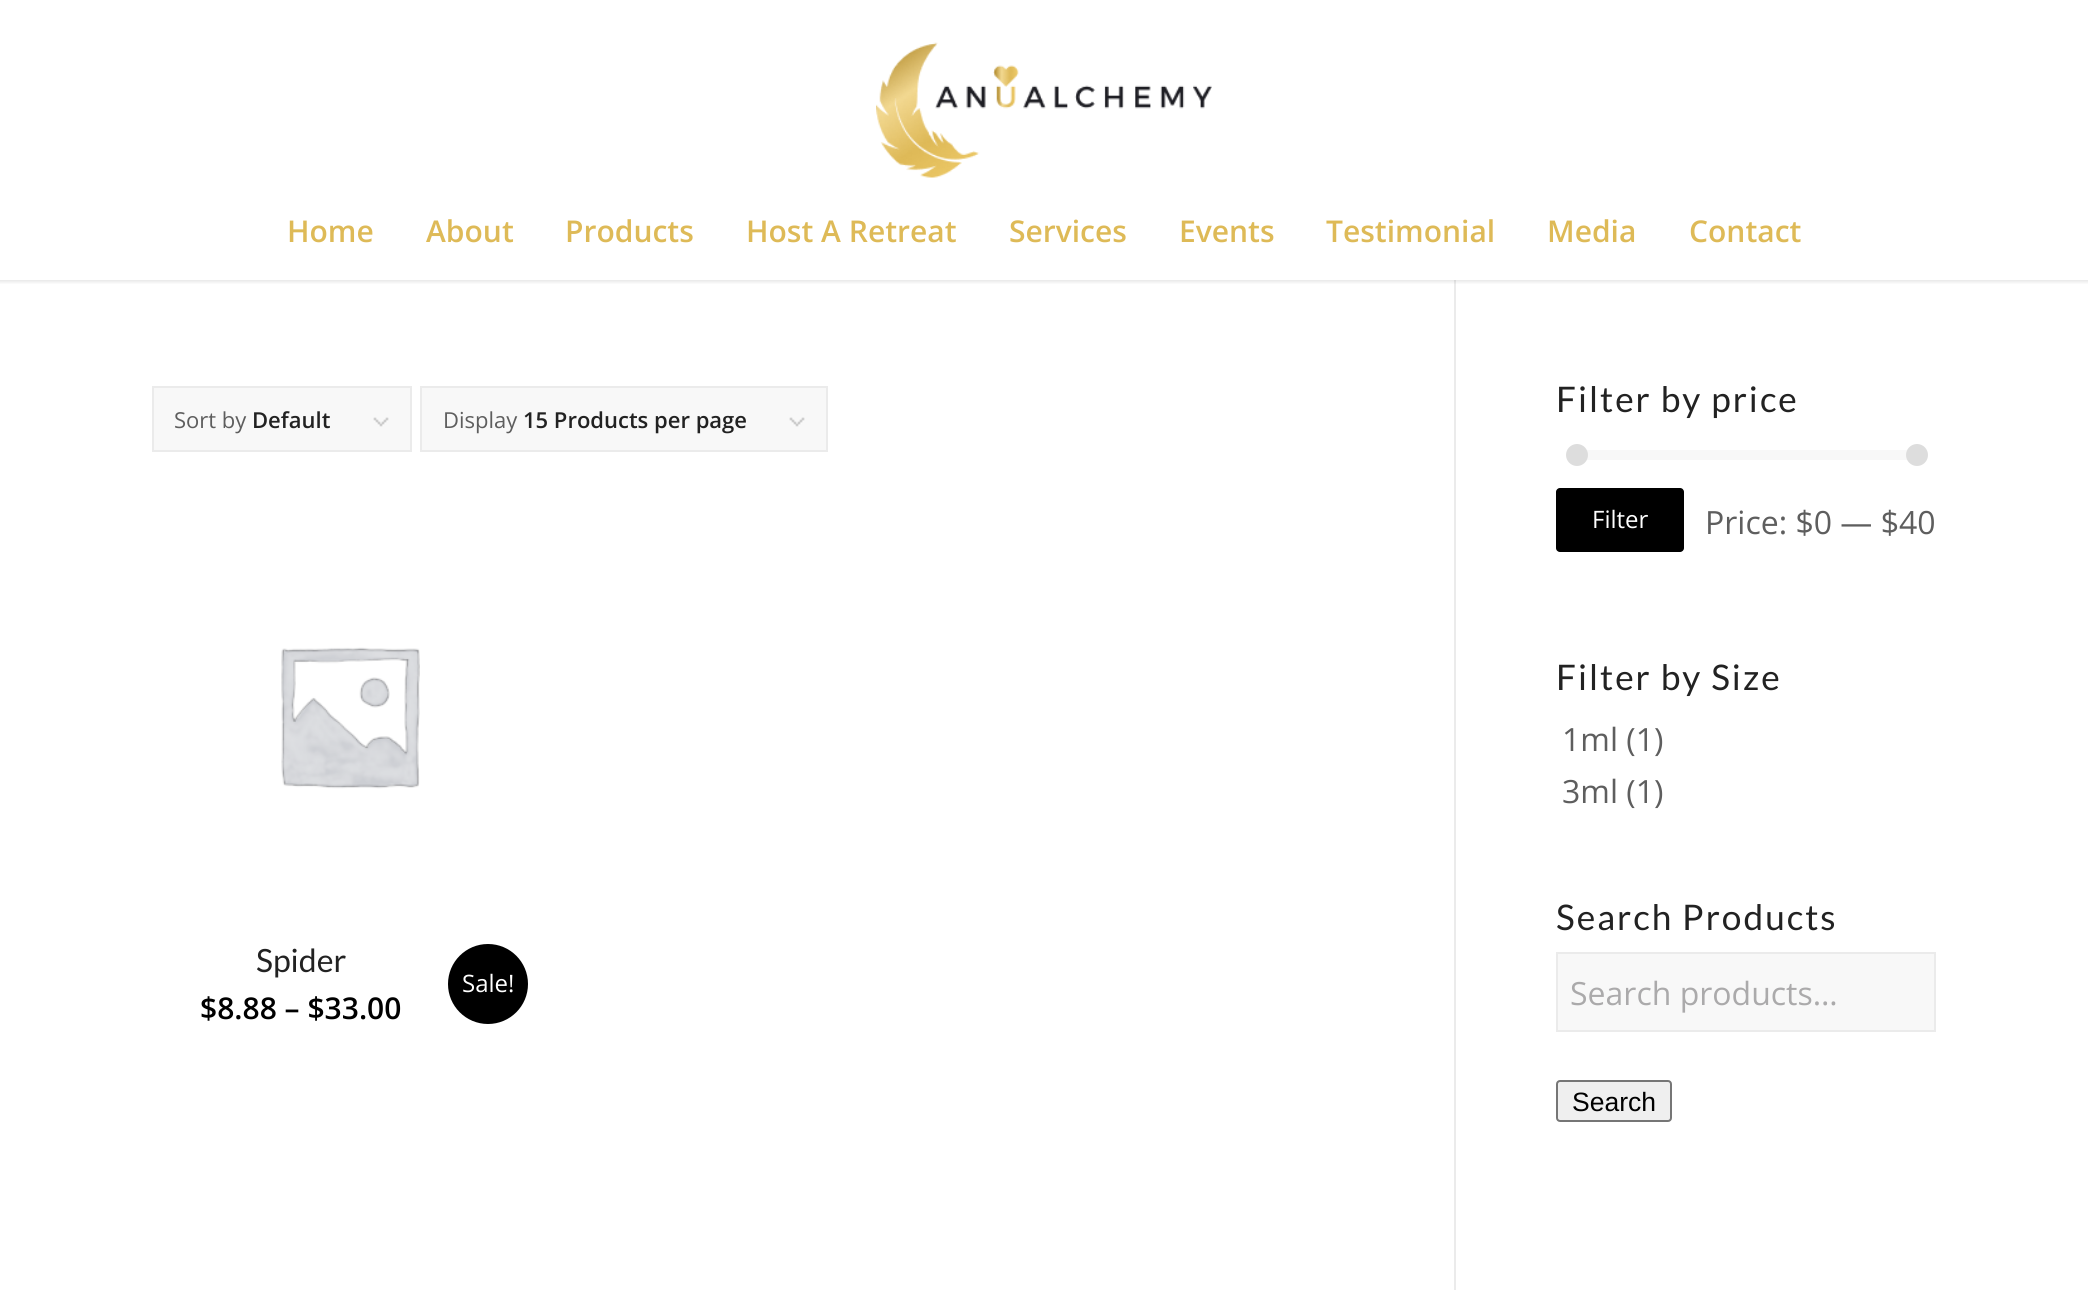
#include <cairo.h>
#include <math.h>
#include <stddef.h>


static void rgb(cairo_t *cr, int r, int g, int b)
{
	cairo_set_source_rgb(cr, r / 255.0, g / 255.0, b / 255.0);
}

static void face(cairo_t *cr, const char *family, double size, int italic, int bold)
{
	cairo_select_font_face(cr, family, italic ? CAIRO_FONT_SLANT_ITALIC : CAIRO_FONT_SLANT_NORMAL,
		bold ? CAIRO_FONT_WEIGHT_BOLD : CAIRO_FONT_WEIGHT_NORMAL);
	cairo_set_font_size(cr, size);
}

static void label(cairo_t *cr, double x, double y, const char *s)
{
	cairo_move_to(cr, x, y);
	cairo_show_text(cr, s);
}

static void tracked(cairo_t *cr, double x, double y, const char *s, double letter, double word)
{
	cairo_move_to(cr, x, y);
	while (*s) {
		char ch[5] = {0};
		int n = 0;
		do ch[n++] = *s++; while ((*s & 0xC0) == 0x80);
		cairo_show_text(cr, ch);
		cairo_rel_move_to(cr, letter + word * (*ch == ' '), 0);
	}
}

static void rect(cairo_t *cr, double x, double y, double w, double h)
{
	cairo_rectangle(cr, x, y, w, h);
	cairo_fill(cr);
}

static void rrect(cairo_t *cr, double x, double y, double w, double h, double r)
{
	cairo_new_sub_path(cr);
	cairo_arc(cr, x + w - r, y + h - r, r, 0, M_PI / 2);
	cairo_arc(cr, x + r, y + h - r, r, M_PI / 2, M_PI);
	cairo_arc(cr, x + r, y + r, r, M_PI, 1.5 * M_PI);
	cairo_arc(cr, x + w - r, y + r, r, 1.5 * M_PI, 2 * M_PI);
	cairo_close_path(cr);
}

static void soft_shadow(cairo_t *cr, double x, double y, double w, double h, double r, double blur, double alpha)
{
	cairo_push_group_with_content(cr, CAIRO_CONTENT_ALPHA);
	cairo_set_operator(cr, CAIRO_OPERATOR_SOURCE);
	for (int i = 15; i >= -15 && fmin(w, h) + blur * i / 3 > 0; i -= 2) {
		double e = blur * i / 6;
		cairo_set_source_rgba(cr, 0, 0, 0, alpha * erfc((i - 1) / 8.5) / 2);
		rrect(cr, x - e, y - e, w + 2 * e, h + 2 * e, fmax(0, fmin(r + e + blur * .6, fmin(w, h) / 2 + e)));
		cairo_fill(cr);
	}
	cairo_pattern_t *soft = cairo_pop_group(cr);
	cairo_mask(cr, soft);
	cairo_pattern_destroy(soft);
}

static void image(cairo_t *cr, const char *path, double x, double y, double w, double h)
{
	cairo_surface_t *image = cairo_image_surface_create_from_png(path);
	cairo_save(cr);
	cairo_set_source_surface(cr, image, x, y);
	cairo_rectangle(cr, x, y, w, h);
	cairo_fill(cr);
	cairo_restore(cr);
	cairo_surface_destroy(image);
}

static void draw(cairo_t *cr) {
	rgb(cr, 255, 255, 255);
	cairo_paint(cr);
	rgb(cr, 235, 235, 235);
	rect(cr, 1454, 280, 2, 1010);
	cairo_save(cr);
	cairo_rectangle(cr, 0, 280, 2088, 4);
	cairo_clip(cr);
	rgb(cr, 0, 0, 0);
	soft_shadow(cr, -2, -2, 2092, 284, 0, 2, 0.1);
	cairo_restore(cr);
	image(cr, "image0.png", 876, 42, 336, 136);
	face(cr, "Open Sans SemiBold", 30, 0, 0);
	rgb(cr, 222, 186, 87);
	label(cr, 287, 242, "Home");
	label(cr, 426, 242, "About");
	label(cr, 565, 242, "Products");
	label(cr, 746, 242, "Host A Retreat");
	label(cr, 1009, 242, "Services");
	label(cr, 1179, 242, "Events");
	label(cr, 1326, 242, "Testimonial");
	label(cr, 1547, 242, "Media");
	label(cr, 1689, 242, "Contact");
	rgb(cr, 248, 248, 248);
	rect(cr, 154, 388, 256, 62);
	image(cr, "image1.png", 373, 417, 16, 10);
	cairo_rectangle(cr, 153, 387, 258, 64);
	rgb(cr, 235, 235, 235);
	cairo_stroke(cr);
	face(cr, "Open Sans", 22, 0, 0);
	rgb(cr, 94, 94, 94);
	label(cr, 174, 428, "Sort by");
	face(cr, "Open Sans SemiBold", 22, 0, 0);
	rgb(cr, 34, 34, 34);
	label(cr, 252, 428, "Default");
	rgb(cr, 248, 248, 248);
	rect(cr, 422, 388, 404, 62);
	image(cr, "image1.png", 789, 417, 16, 10);
	cairo_rectangle(cr, 421, 387, 406, 64);
	rgb(cr, 235, 235, 235);
	cairo_stroke(cr);
	face(cr, "Open Sans", 22, 0, 0);
	rgb(cr, 94, 94, 94);
	label(cr, 443, 428, "Display");
	face(cr, "Open Sans SemiBold", 22, 0, 0);
	rgb(cr, 34, 34, 34);
	label(cr, 523, 428, "15 Products per page");
	image(cr, "image2.png", 281, 647, 139, 142);
	face(cr, "Lato", 32, 0, 0);
	label(cr, 256, 972, "Spider");
	rgb(cr, 0, 0, 0);
	cairo_new_path(cr);
	cairo_arc(cr, 488, 984, 40, 0, 2 * M_PI);
	cairo_fill(cr);
	face(cr, "Open Sans", 24, 0, 0);
	rgb(cr, 255, 255, 255);
	label(cr, 462, 992, "Sale!");
	face(cr, "Open Sans SemiBold", 30, 0, 0);
	rgb(cr, 0, 0, 0);
	label(cr, 200, 1019, "$8.88 – $33.00");
	face(cr, "Lato", 35.25, 0, 0);
	rgb(cr, 34, 34, 34);
	tracked(cr, 1556, 412, "Filter by price", 2, 0);
	rgb(cr, 248, 248, 248);
	rect(cr, 1586, 450, 322, 10);
	rgb(cr, 221, 221, 221);
	cairo_new_path(cr);
	cairo_arc(cr, 1577, 455, 11, 0, 2 * M_PI);
	cairo_fill(cr);
	cairo_arc(cr, 1917, 455, 11, 0, 2 * M_PI);
	cairo_fill(cr);
	rgb(cr, 0, 0, 0);
	rrect(cr, 1556, 488, 128, 64, 4);
	cairo_fill(cr);
	face(cr, "Open Sans", 24, 0, 0);
	rgb(cr, 255, 255, 255);
	label(cr, 1592, 528, "Filter");
	face(cr, "Open Sans", 32, 0, 0);
	rgb(cr, 94, 94, 94);
	label(cr, 1705, 534, "Price: $0 — $40");
	face(cr, "Lato", 35.25, 0, 0);
	rgb(cr, 34, 34, 34);
	tracked(cr, 1556, 690, "Filter by Size", 2, 0);
	face(cr, "Open Sans", 32, 0, 0);
	rgb(cr, 94, 94, 94);
	label(cr, 1562, 751, "1ml (1)");
	label(cr, 1562, 803, "3ml (1)");
	face(cr, "Lato", 35.25, 0, 0);
	rgb(cr, 34, 34, 34);
	tracked(cr, 1556, 930, "Search Products", 2, 0);
	rgb(cr, 248, 248, 248);
	cairo_rectangle(cr, 1557, 953, 378, 78);
	cairo_fill_preserve(cr);
	rgb(cr, 235, 235, 235);
	cairo_stroke(cr);
	face(cr, "Open Sans", 32, 0, 0);
	rgb(cr, 171, 170, 171);
	label(cr, 1570, 1005, "Search products…");
	rgb(cr, 239, 239, 239);
	rrect(cr, 1557, 1081, 114, 40, 3);
	cairo_fill_preserve(cr);
	rgb(cr, 118, 118, 118);
	cairo_stroke(cr);
	face(cr, "Liberation Sans", 26.5, 0, 0);
	rgb(cr, 0, 0, 0);
	label(cr, 1572, 1111, "Search");
}

int main(void) {
	cairo_surface_t *surface = cairo_image_surface_create(CAIRO_FORMAT_RGB24, 2088, 1290);
	cairo_t *cr = cairo_create(surface);
	cairo_font_options_t *options = cairo_font_options_create();
	cairo_font_options_set_hint_metrics(options, CAIRO_HINT_METRICS_OFF);
	cairo_font_options_set_hint_style(options, CAIRO_HINT_STYLE_NONE);
	cairo_set_font_options(cr, options);
	cairo_set_miter_limit(cr, 4);
	draw(cr);
	cairo_surface_write_to_png(surface, "render.png");
	cairo_font_options_destroy(options);
	cairo_destroy(cr);
	cairo_surface_destroy(surface);
	return 0;
}
